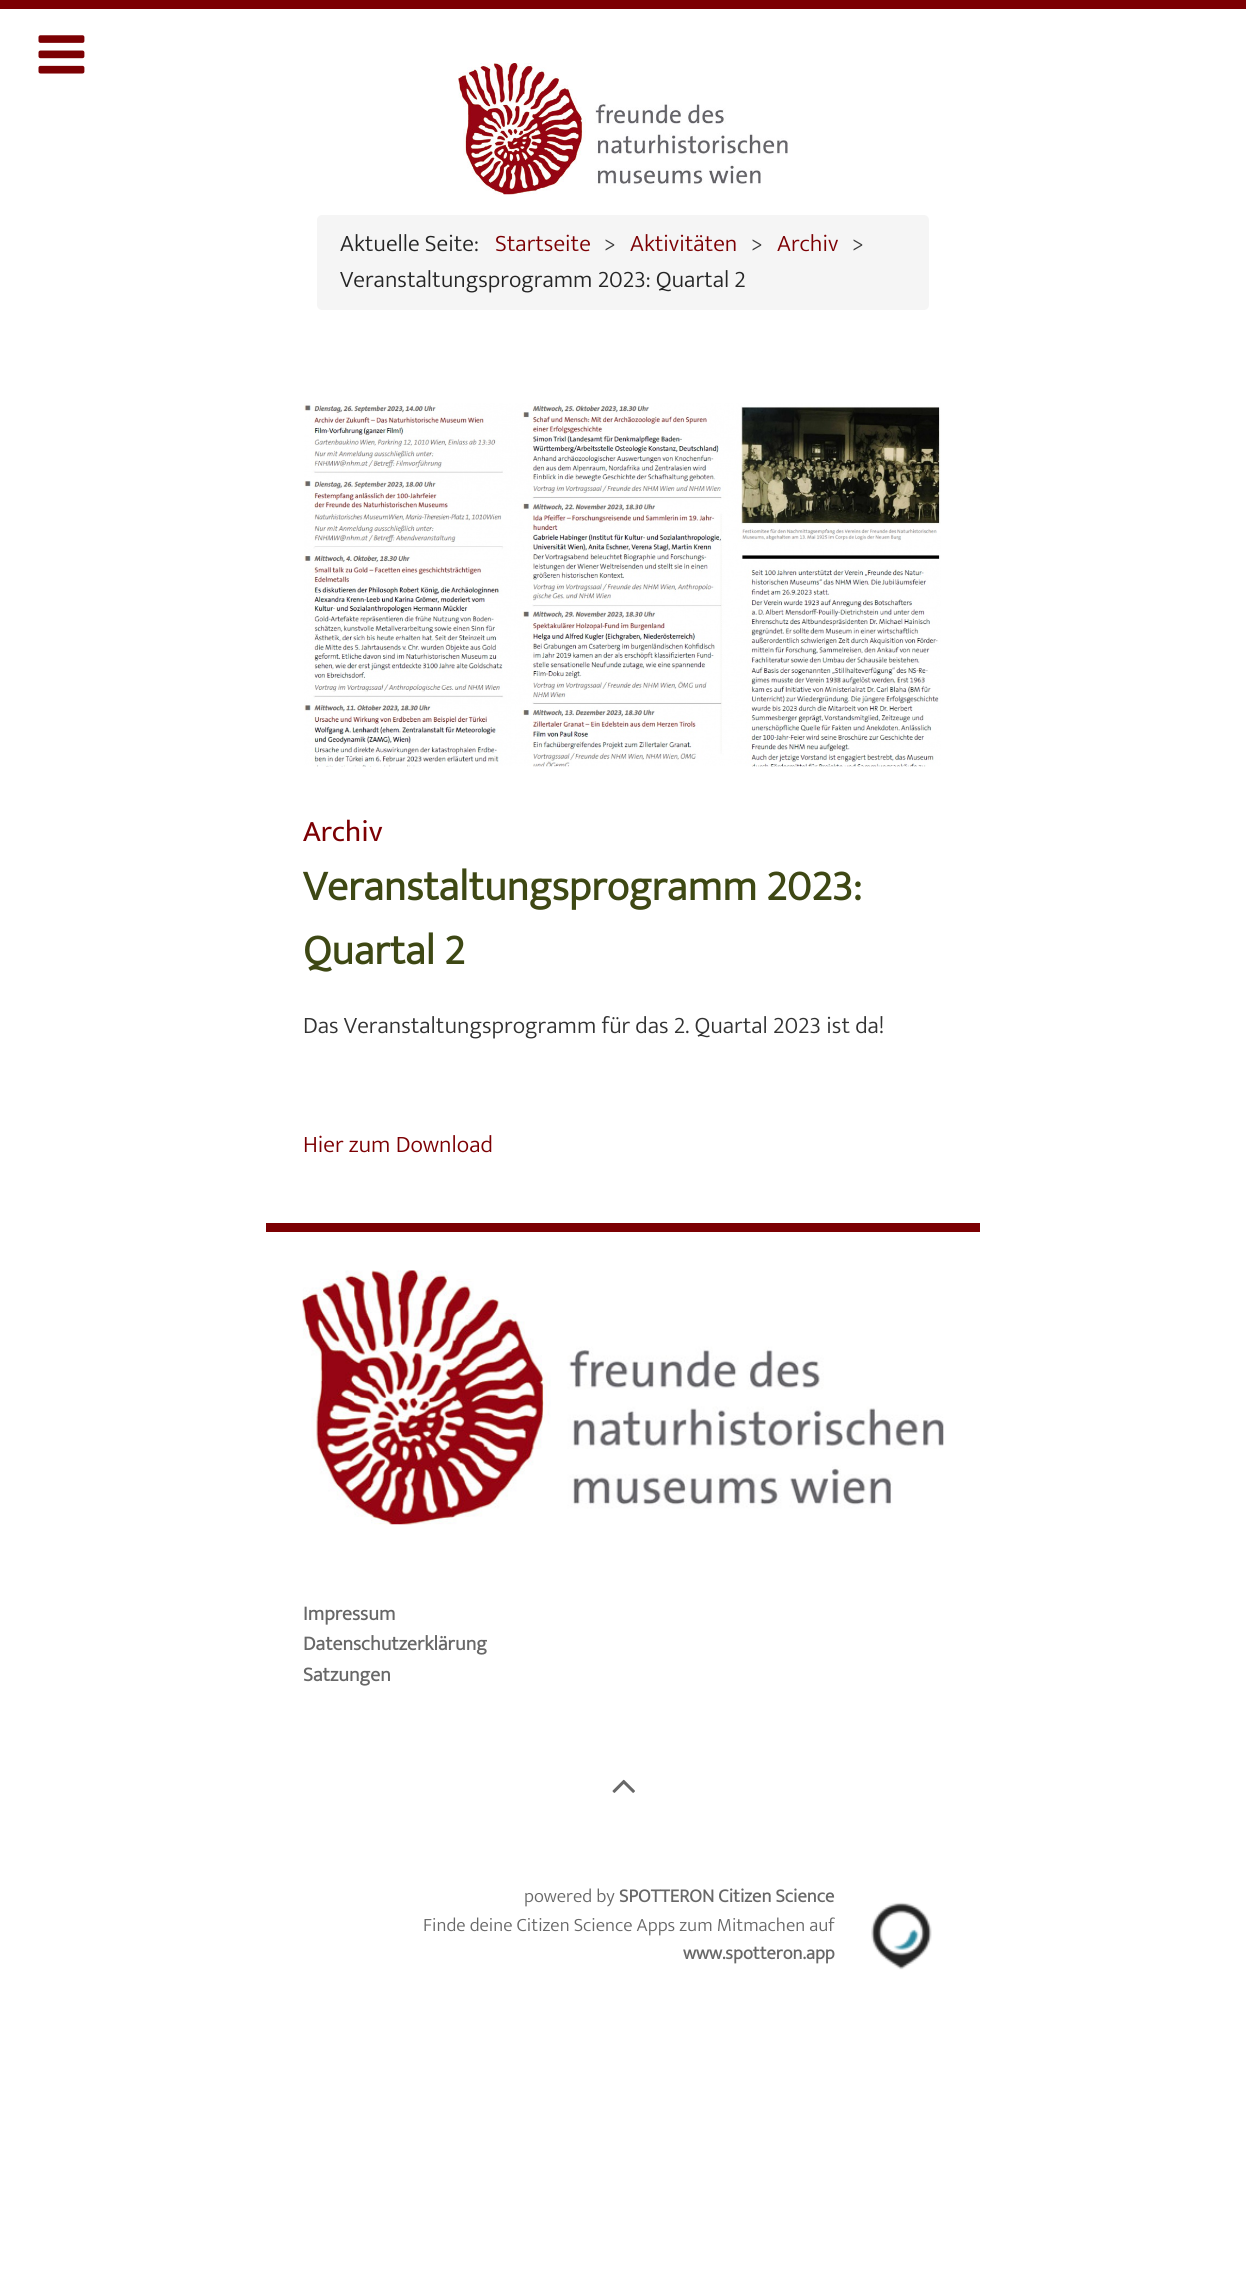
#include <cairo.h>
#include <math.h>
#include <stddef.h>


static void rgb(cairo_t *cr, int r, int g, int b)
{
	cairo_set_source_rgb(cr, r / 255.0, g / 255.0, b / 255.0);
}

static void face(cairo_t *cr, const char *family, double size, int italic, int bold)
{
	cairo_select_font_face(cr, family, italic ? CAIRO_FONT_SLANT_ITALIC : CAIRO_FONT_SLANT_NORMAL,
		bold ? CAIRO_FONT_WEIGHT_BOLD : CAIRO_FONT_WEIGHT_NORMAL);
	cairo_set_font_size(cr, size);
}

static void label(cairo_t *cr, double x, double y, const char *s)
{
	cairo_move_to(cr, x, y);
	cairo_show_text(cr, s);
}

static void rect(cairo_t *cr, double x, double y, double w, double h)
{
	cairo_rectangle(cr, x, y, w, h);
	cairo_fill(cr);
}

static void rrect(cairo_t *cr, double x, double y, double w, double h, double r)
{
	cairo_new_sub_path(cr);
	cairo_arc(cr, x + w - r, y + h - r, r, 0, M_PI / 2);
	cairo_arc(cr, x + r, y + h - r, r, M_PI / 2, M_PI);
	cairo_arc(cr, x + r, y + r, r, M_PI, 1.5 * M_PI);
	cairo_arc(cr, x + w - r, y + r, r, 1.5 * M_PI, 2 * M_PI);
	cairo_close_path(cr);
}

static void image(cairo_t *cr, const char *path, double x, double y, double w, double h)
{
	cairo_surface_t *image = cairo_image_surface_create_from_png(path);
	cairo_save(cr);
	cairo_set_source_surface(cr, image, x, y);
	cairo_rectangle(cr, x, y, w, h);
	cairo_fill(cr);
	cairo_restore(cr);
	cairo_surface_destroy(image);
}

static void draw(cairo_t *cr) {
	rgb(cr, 255, 255, 255);
	cairo_paint(cr);
	image(cr, "image0.png", 38, 35, 47, 39);
	rgb(cr, 124, 0, 3);
	rect(cr, 0, 0, 1246, 9);
	image(cr, "image1.png", 458, 63, 330, 132);
	rgb(cr, 245, 245, 245);
	rrect(cr, 317, 215, 612, 95, 5);
	cairo_fill(cr);
	face(cr, "Mukta Light", 23.8, 0, 0);
	rgb(cr, 37, 37, 37);
	label(cr, 340, 251, "Aktuelle Seite:");
	rgb(cr, 124, 0, 3);
	label(cr, 495, 251, "Startseite");
	rgb(cr, 60, 60, 60);
	label(cr, 604, 251, ">");
	rgb(cr, 124, 0, 3);
	label(cr, 630, 251, "Aktivitäten");
	rgb(cr, 60, 60, 60);
	label(cr, 751, 251, ">");
	rgb(cr, 124, 0, 3);
	label(cr, 777, 251, "Archiv");
	rgb(cr, 60, 60, 60);
	label(cr, 852, 251, ">");
	rgb(cr, 37, 37, 37);
	label(cr, 340, 287, "Veranstaltungsprogramm 2023: Quartal 2");
	image(cr, "image2.png", 304, 403, 637, 364);
	face(cr, "Ek Mukta", 30, 0, 0);
	rgb(cr, 124, 0, 3);
	label(cr, 303, 841, "Archiv");
	face(cr, "Mukta", 42.8, 0, 1);
	rgb(cr, 62, 72, 20);
	label(cr, 303, 900, "Veranstaltungsprogramm 2023:");
	label(cr, 303, 964, "Quartal 2");
	face(cr, "Mukta Light", 23.8, 0, 0);
	rgb(cr, 50, 50, 50);
	label(cr, 303, 1033, "Das Veranstaltungsprogramm für das 2. Quartal 2023 ist da!");
	rgb(cr, 124, 0, 3);
	label(cr, 303, 1152, "Hier zum Download");
	rect(cr, 266, 1223, 714, 9);
	image(cr, "image3.png", 302, 1270, 642, 255);
	face(cr, "Mukta", 20.25, 0, 1);
	rgb(cr, 104, 104, 104);
	label(cr, 303, 1620, "Impressum");
	label(cr, 303, 1650, "Datenschutzerklärung");
	label(cr, 303, 1681, "Satzungen");
	image(cr, "image4.png", 612, 1779, 23, 14);
	face(cr, "Mukta Light", 19, 0, 0);
	label(cr, 524, 1902, "powered by");
	face(cr, "Mukta", 19, 0, 1);
	label(cr, 619, 1902, "SPOTTERON Citizen Science");
	face(cr, "Mukta Light", 19, 0, 0);
	label(cr, 423, 1931, "Finde deine Citizen Science Apps zum Mitmachen auf");
	image(cr, "image5.png", 871, 1902, 61, 68);
	face(cr, "Mukta", 19, 0, 1);
	label(cr, 683, 1959, "www.spotteron.app");
}

int main(void) {
	cairo_surface_t *surface = cairo_image_surface_create(CAIRO_FORMAT_RGB24, 1246, 2288);
	cairo_t *cr = cairo_create(surface);
	cairo_font_options_t *options = cairo_font_options_create();
	cairo_font_options_set_hint_metrics(options, CAIRO_HINT_METRICS_OFF);
	cairo_font_options_set_hint_style(options, CAIRO_HINT_STYLE_NONE);
	cairo_set_font_options(cr, options);
	cairo_set_miter_limit(cr, 4);
	draw(cr);
	cairo_surface_write_to_png(surface, "render.png");
	cairo_font_options_destroy(options);
	cairo_destroy(cr);
	cairo_surface_destroy(surface);
	return 0;
}
